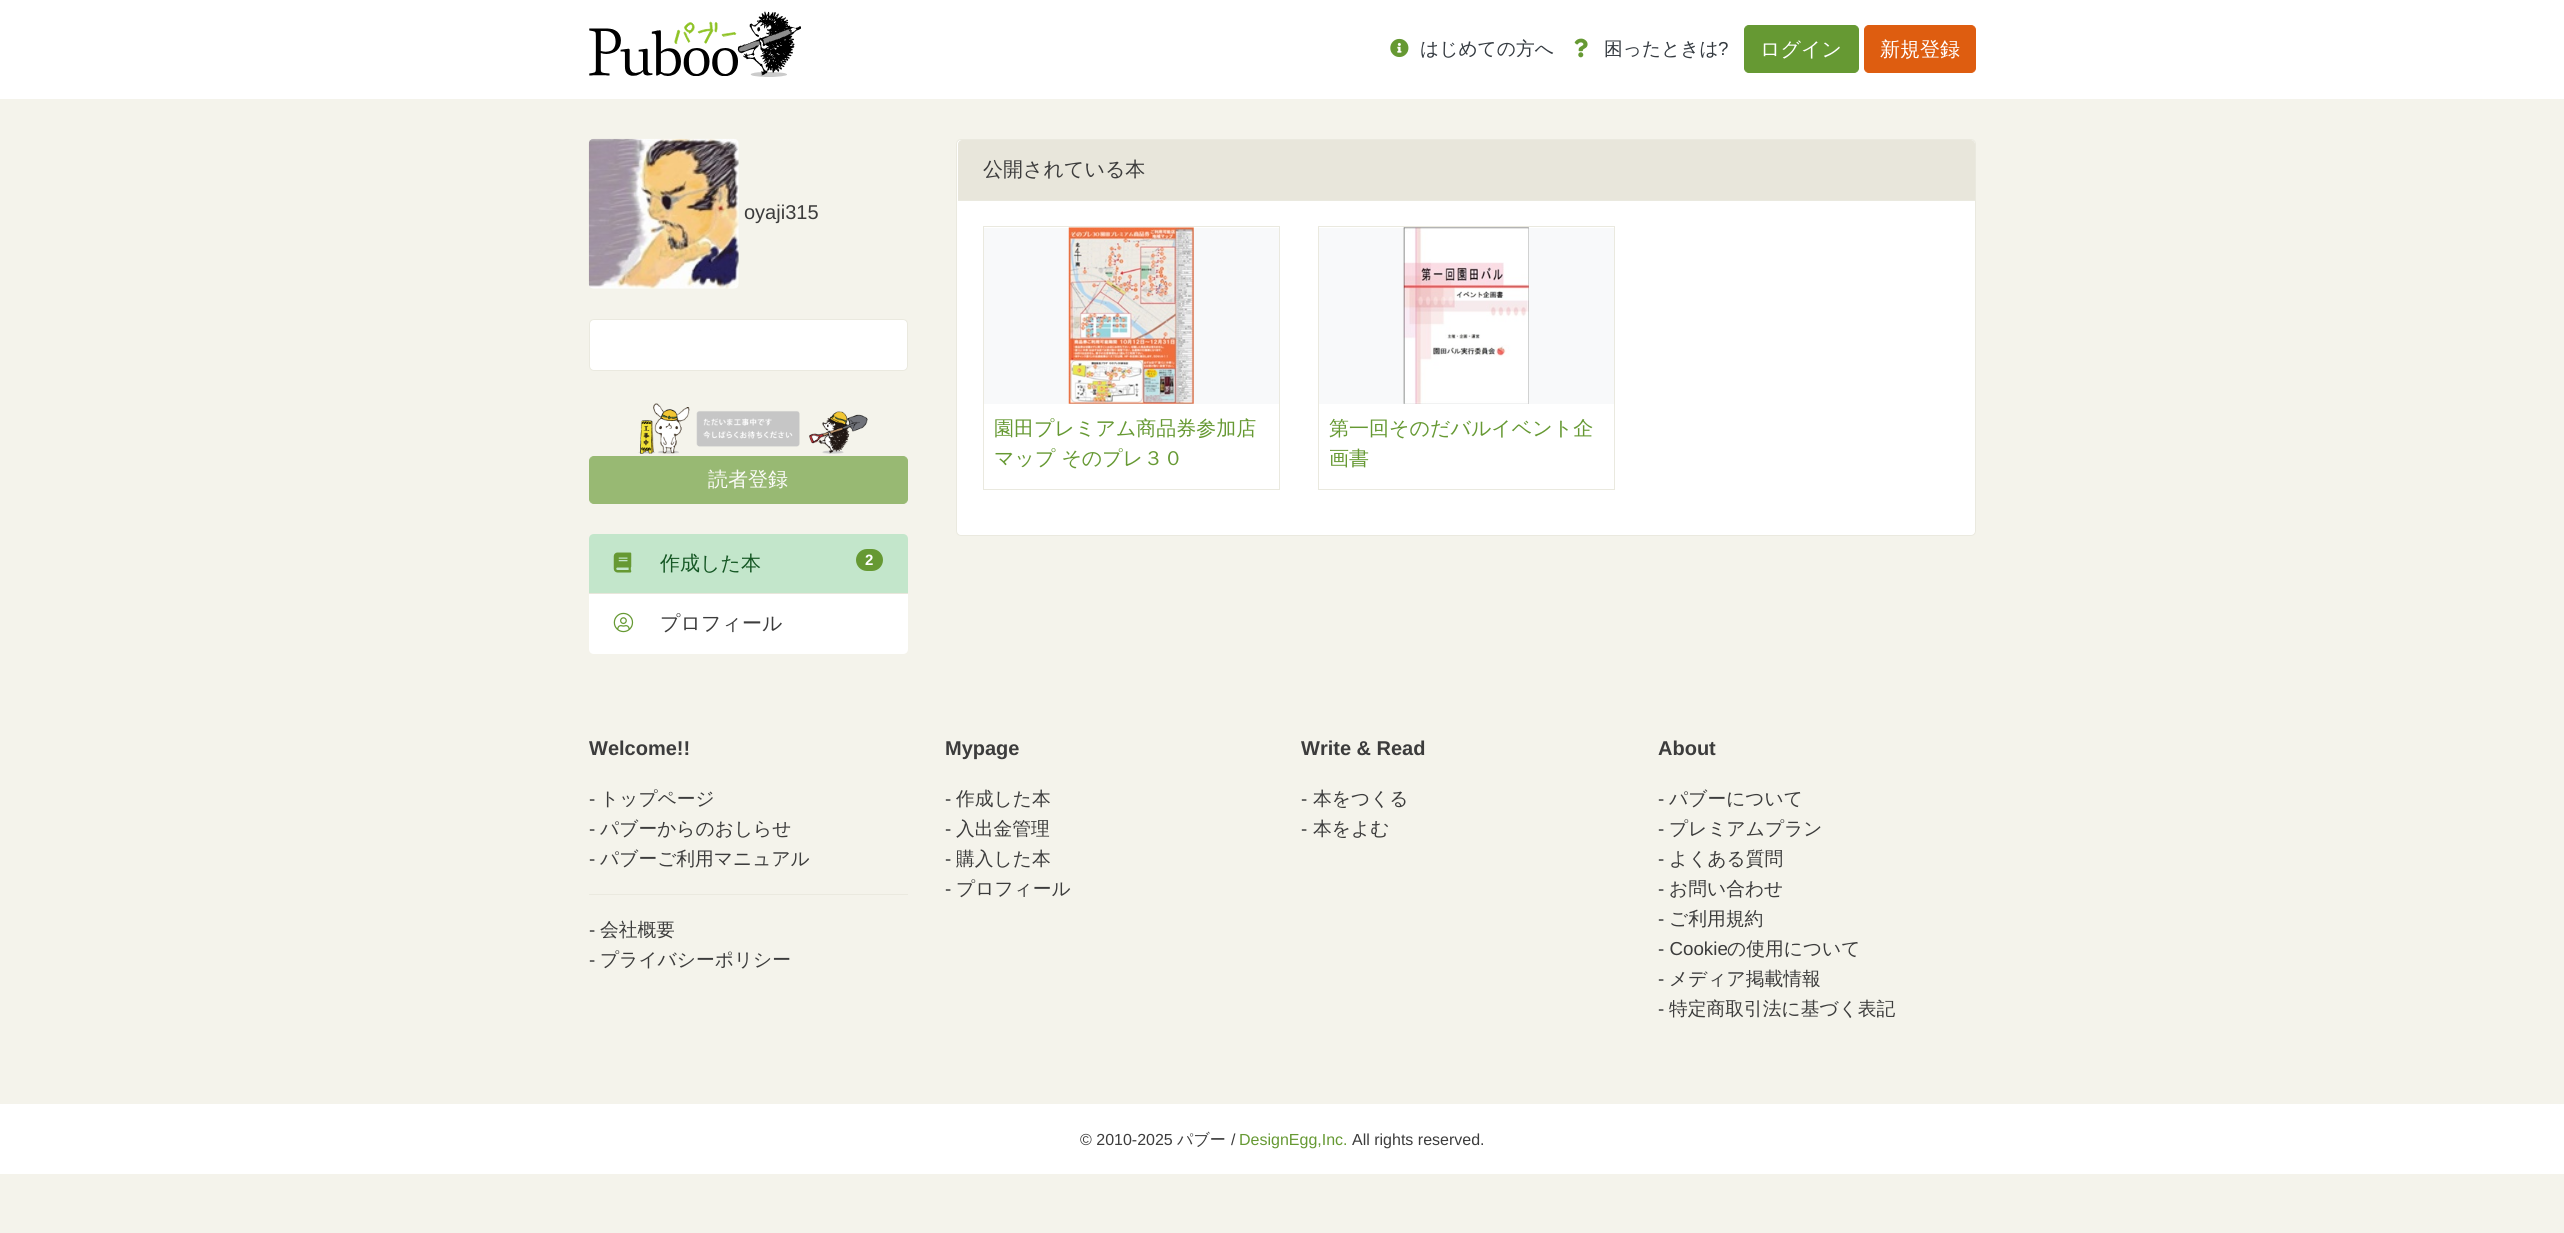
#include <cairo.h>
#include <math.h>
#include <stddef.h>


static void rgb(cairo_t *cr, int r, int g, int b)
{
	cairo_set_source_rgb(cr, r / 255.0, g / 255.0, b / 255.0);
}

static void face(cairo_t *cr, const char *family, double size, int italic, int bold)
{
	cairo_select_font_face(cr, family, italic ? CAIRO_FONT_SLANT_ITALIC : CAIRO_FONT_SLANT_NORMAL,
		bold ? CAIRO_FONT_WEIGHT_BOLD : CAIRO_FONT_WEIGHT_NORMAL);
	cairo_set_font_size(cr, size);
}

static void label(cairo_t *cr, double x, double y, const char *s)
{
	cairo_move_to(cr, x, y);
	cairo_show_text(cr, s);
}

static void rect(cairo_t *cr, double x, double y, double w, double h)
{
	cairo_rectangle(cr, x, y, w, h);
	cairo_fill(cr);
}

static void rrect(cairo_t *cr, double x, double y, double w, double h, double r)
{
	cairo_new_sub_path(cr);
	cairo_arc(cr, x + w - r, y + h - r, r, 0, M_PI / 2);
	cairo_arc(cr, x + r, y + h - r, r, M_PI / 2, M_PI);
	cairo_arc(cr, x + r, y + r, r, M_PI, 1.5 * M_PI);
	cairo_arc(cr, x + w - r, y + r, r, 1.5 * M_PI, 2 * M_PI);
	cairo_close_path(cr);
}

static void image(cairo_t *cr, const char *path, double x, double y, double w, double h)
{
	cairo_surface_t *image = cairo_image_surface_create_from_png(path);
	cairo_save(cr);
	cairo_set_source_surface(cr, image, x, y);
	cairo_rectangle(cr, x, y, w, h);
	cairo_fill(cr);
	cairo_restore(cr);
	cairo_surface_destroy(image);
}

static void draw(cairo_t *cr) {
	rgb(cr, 244, 243, 235);
	cairo_paint(cr);
	rgb(cr, 255, 255, 255);
	rect(cr, 0, 0, 2564, 99);
	image(cr, "image0.png", 589, 11, 212, 66);
	image(cr, "image1.png", 1390, 38, 19, 20);
	face(cr, "WenQuanYi Zen Hei Medium", 18.75, 0, 0);
	rgb(cr, 52, 58, 64);
	label(cr, 1420, 55, "はじめての方へ");
	image(cr, "image2.png", 1574, 38, 14, 20);
	label(cr, 1604, 55, "困ったときは");
	face(cr, "Liberation Sans", 18.75, 0, 0);
	label(cr, 1718, 55, "?");
	rgb(cr, 102, 153, 51);
	rrect(cr, 1744.5, 25.5, 114, 47, 4.5);
	cairo_fill_preserve(cr);
	cairo_set_line_width(cr, 1);
	cairo_stroke(cr);
	face(cr, "WenQuanYi Zen Hei Medium", 20, 0, 0);
	rgb(cr, 255, 255, 255);
	label(cr, 1760, 56, "ログイン");
	rgb(cr, 222, 93, 16);
	rrect(cr, 1864.5, 25.5, 111, 47, 4.5);
	cairo_fill_preserve(cr);
	cairo_stroke(cr);
	rgb(cr, 255, 255, 255);
	label(cr, 1880, 56, "新規登録");
	image(cr, "image3.png", 588, 138, 151, 151);
	face(cr, "Liberation Sans", 20, 0, 0);
	rgb(cr, 60, 60, 60);
	label(cr, 744, 219, "oyaji315");
	rgb(cr, 255, 255, 255);
	rrect(cr, 589.5, 319.5, 318, 51, 4.5);
	cairo_fill_preserve(cr);
	rgb(cr, 234, 233, 223);
	cairo_stroke(cr);
	image(cr, "image4.png", 638, 403, 230, 51);
	rgb(cr, 152, 185, 115);
	rrect(cr, 589.5, 456.5, 318, 47, 4.5);
	cairo_fill_preserve(cr);
	cairo_stroke(cr);
	face(cr, "WenQuanYi Zen Hei Medium", 20, 0, 0);
	rgb(cr, 251, 251, 248);
	label(cr, 708, 486, "読者登録");
	rgb(cr, 195, 230, 203);
	cairo_new_path(cr);
	cairo_move_to(cr, 594, 534);
	cairo_line_to(cr, 903, 534);
	cairo_curve_to(cr, 906, 534, 908, 536, 908, 539);
	cairo_line_to(cr, 908, 594);
	cairo_line_to(cr, 589, 594);
	cairo_line_to(cr, 589, 539);
	cairo_curve_to(cr, 589, 536, 591, 534, 594, 534);
	cairo_close_path(cr);
	cairo_fill(cr);
	image(cr, "image5.png", 613, 552, 19, 21);
	rgb(cr, 21, 87, 36);
	label(cr, 660, 570, "作成した本");
	rgb(cr, 102, 153, 51);
	rrect(cr, 856, 549, 27, 22, 11);
	cairo_fill(cr);
	face(cr, "Liberation Sans", 15, 0, 1);
	rgb(cr, 255, 255, 255);
	label(cr, 865, 565, "2");
	cairo_new_path(cr);
	cairo_move_to(cr, 589, 593);
	cairo_line_to(cr, 908, 593);
	cairo_line_to(cr, 908, 649);
	cairo_curve_to(cr, 908, 652, 906, 654, 903, 654);
	cairo_line_to(cr, 594, 654);
	cairo_curve_to(cr, 591, 654, 589, 652, 589, 649);
	cairo_close_path(cr);
	cairo_fill(cr);
	rgb(cr, 232, 230, 219);
	rect(cr, 589, 593, 319, 1);
	image(cr, "image6.png", 613, 612, 21, 21);
	face(cr, "WenQuanYi Zen Hei Medium", 20, 0, 0);
	rgb(cr, 60, 60, 60);
	label(cr, 660, 630, "プロフィール");
	rgb(cr, 255, 255, 255);
	rrect(cr, 956.5, 139.5, 1019, 396, 4.5);
	cairo_fill_preserve(cr);
	rgb(cr, 234, 233, 223);
	cairo_stroke(cr);
	rgb(cr, 232, 230, 219);
	cairo_new_path(cr);
	cairo_move_to(cr, 962, 140);
	cairo_line_to(cr, 1971, 140);
	cairo_curve_to(cr, 1973, 140, 1975, 142, 1975, 144);
	cairo_line_to(cr, 1975, 201);
	cairo_line_to(cr, 958, 201);
	cairo_line_to(cr, 958, 144);
	cairo_curve_to(cr, 958, 142, 960, 140, 962, 140);
	cairo_close_path(cr);
	cairo_fill(cr);
	rgb(cr, 234, 233, 223);
	rect(cr, 958, 200, 1017, 1);
	rgb(cr, 60, 60, 60);
	label(cr, 983, 176, "公開されている本");
	cairo_rectangle(cr, 983.5, 226.5, 296, 263);
	rgb(cr, 234, 233, 223);
	cairo_stroke(cr);
	rgb(cr, 248, 249, 250);
	rect(cr, 984, 228, 295, 176);
	image(cr, "image7.png", 1068, 227, 126, 177);
	rgb(cr, 102, 153, 51);
	label(cr, 994, 435, "園田プレミアム商品券参加店");
	label(cr, 994, 465, "マップ そのプレ３０");
	cairo_rectangle(cr, 1318.5, 226.5, 296, 263);
	rgb(cr, 234, 233, 223);
	cairo_stroke(cr);
	rgb(cr, 248, 249, 250);
	rect(cr, 1319, 228, 295, 176);
	image(cr, "image8.png", 1403, 227, 126, 177);
	rgb(cr, 102, 153, 51);
	label(cr, 1329, 435, "第一回そのだバルイベント企");
	label(cr, 1329, 465, "画書");
	face(cr, "Liberation Sans", 20, 0, 1);
	rgb(cr, 60, 60, 60);
	label(cr, 589, 755, "Welcome!!");
	face(cr, "Liberation Sans", 18.75, 0, 0);
	label(cr, 589, 805, "-");
	face(cr, "WenQuanYi Zen Hei Medium", 18.75, 0, 0);
	label(cr, 600, 805, "トップページ");
	face(cr, "Liberation Sans", 18.75, 0, 0);
	label(cr, 589, 835, "-");
	face(cr, "WenQuanYi Zen Hei Medium", 18.75, 0, 0);
	label(cr, 600, 835, "パブーからのおしらせ");
	face(cr, "Liberation Sans", 18.75, 0, 0);
	label(cr, 589, 865, "-");
	face(cr, "WenQuanYi Zen Hei Medium", 18.75, 0, 0);
	label(cr, 600, 865, "パブーご利用マニュアル");
	rgb(cr, 234, 233, 223);
	rect(cr, 589, 894, 319, 1);
	face(cr, "Liberation Sans", 18.75, 0, 0);
	rgb(cr, 60, 60, 60);
	label(cr, 589, 936, "-");
	face(cr, "WenQuanYi Zen Hei Medium", 18.75, 0, 0);
	label(cr, 600, 936, "会社概要");
	face(cr, "Liberation Sans", 18.75, 0, 0);
	label(cr, 589, 966, "-");
	face(cr, "WenQuanYi Zen Hei Medium", 18.75, 0, 0);
	label(cr, 600, 966, "プライバシーポリシー");
	face(cr, "Liberation Sans", 20, 0, 1);
	label(cr, 945, 755, "Mypage");
	face(cr, "Liberation Sans", 18.75, 0, 0);
	label(cr, 945, 805, "-");
	face(cr, "WenQuanYi Zen Hei Medium", 18.75, 0, 0);
	label(cr, 956, 805, "作成した本");
	face(cr, "Liberation Sans", 18.75, 0, 0);
	label(cr, 945, 835, "-");
	face(cr, "WenQuanYi Zen Hei Medium", 18.75, 0, 0);
	label(cr, 956, 835, "入出金管理");
	face(cr, "Liberation Sans", 18.75, 0, 0);
	label(cr, 945, 865, "-");
	face(cr, "WenQuanYi Zen Hei Medium", 18.75, 0, 0);
	label(cr, 956, 865, "購入した本");
	face(cr, "Liberation Sans", 18.75, 0, 0);
	label(cr, 945, 895, "-");
	face(cr, "WenQuanYi Zen Hei Medium", 18.75, 0, 0);
	label(cr, 956, 895, "プロフィール");
	face(cr, "Liberation Sans", 20, 0, 1);
	label(cr, 1301, 755, "Write & Read");
	face(cr, "Liberation Sans", 18.75, 0, 0);
	label(cr, 1301, 805, "-");
	face(cr, "WenQuanYi Zen Hei Medium", 18.75, 0, 0);
	label(cr, 1313, 805, "本をつくる");
	face(cr, "Liberation Sans", 18.75, 0, 0);
	label(cr, 1301, 835, "-");
	face(cr, "WenQuanYi Zen Hei Medium", 18.75, 0, 0);
	label(cr, 1313, 835, "本をよむ");
	face(cr, "Liberation Sans", 20, 0, 1);
	label(cr, 1658, 755, "About");
	face(cr, "Liberation Sans", 18.75, 0, 0);
	label(cr, 1658, 805, "-");
	face(cr, "WenQuanYi Zen Hei Medium", 18.75, 0, 0);
	label(cr, 1669, 805, "パブーについて");
	face(cr, "Liberation Sans", 18.75, 0, 0);
	label(cr, 1658, 835, "-");
	face(cr, "WenQuanYi Zen Hei Medium", 18.75, 0, 0);
	label(cr, 1669, 835, "プレミアムプラン");
	face(cr, "Liberation Sans", 18.75, 0, 0);
	label(cr, 1658, 865, "-");
	face(cr, "WenQuanYi Zen Hei Medium", 18.75, 0, 0);
	label(cr, 1669, 865, "よくある質問");
	face(cr, "Liberation Sans", 18.75, 0, 0);
	label(cr, 1658, 895, "-");
	face(cr, "WenQuanYi Zen Hei Medium", 18.75, 0, 0);
	label(cr, 1669, 895, "お問い合わせ");
	face(cr, "Liberation Sans", 18.75, 0, 0);
	label(cr, 1658, 925, "-");
	face(cr, "WenQuanYi Zen Hei Medium", 18.75, 0, 0);
	label(cr, 1669, 925, "ご利用規約");
	face(cr, "Liberation Sans", 18.75, 0, 0);
	label(cr, 1658, 955, "- Cookie");
	face(cr, "WenQuanYi Zen Hei Medium", 18.75, 0, 0);
	label(cr, 1727, 955, "の使用について");
	face(cr, "Liberation Sans", 18.75, 0, 0);
	label(cr, 1658, 985, "-");
	face(cr, "WenQuanYi Zen Hei Medium", 18.75, 0, 0);
	label(cr, 1669, 985, "メディア掲載情報");
	face(cr, "Liberation Sans", 18.75, 0, 0);
	label(cr, 1658, 1015, "-");
	face(cr, "WenQuanYi Zen Hei Medium", 18.75, 0, 0);
	label(cr, 1669, 1015, "特定商取引法に基づく表記");
	rgb(cr, 255, 255, 255);
	rect(cr, 0, 1104, 2564, 70);
	face(cr, "Liberation Sans", 16, 0, 0);
	rgb(cr, 60, 60, 60);
	label(cr, 1080, 1145, "© 2010-2025");
	face(cr, "WenQuanYi Zen Hei Medium", 16, 0, 0);
	label(cr, 1177, 1145, "パブー");
	face(cr, "Liberation Sans", 16, 0, 0);
	label(cr, 1231, 1145, "/");
	rgb(cr, 102, 153, 51);
	label(cr, 1239, 1145, "DesignEgg,Inc.");
	rgb(cr, 60, 60, 60);
	label(cr, 1352, 1145, "All rights reserved.");
}

int main(void) {
	cairo_surface_t *surface = cairo_image_surface_create(CAIRO_FORMAT_RGB24, 2564, 1233);
	cairo_t *cr = cairo_create(surface);
	cairo_font_options_t *options = cairo_font_options_create();
	cairo_font_options_set_hint_metrics(options, CAIRO_HINT_METRICS_OFF);
	cairo_font_options_set_hint_style(options, CAIRO_HINT_STYLE_NONE);
	cairo_set_font_options(cr, options);
	cairo_set_miter_limit(cr, 4);
	draw(cr);
	cairo_surface_write_to_png(surface, "render.png");
	cairo_font_options_destroy(options);
	cairo_destroy(cr);
	cairo_surface_destroy(surface);
	return 0;
}
